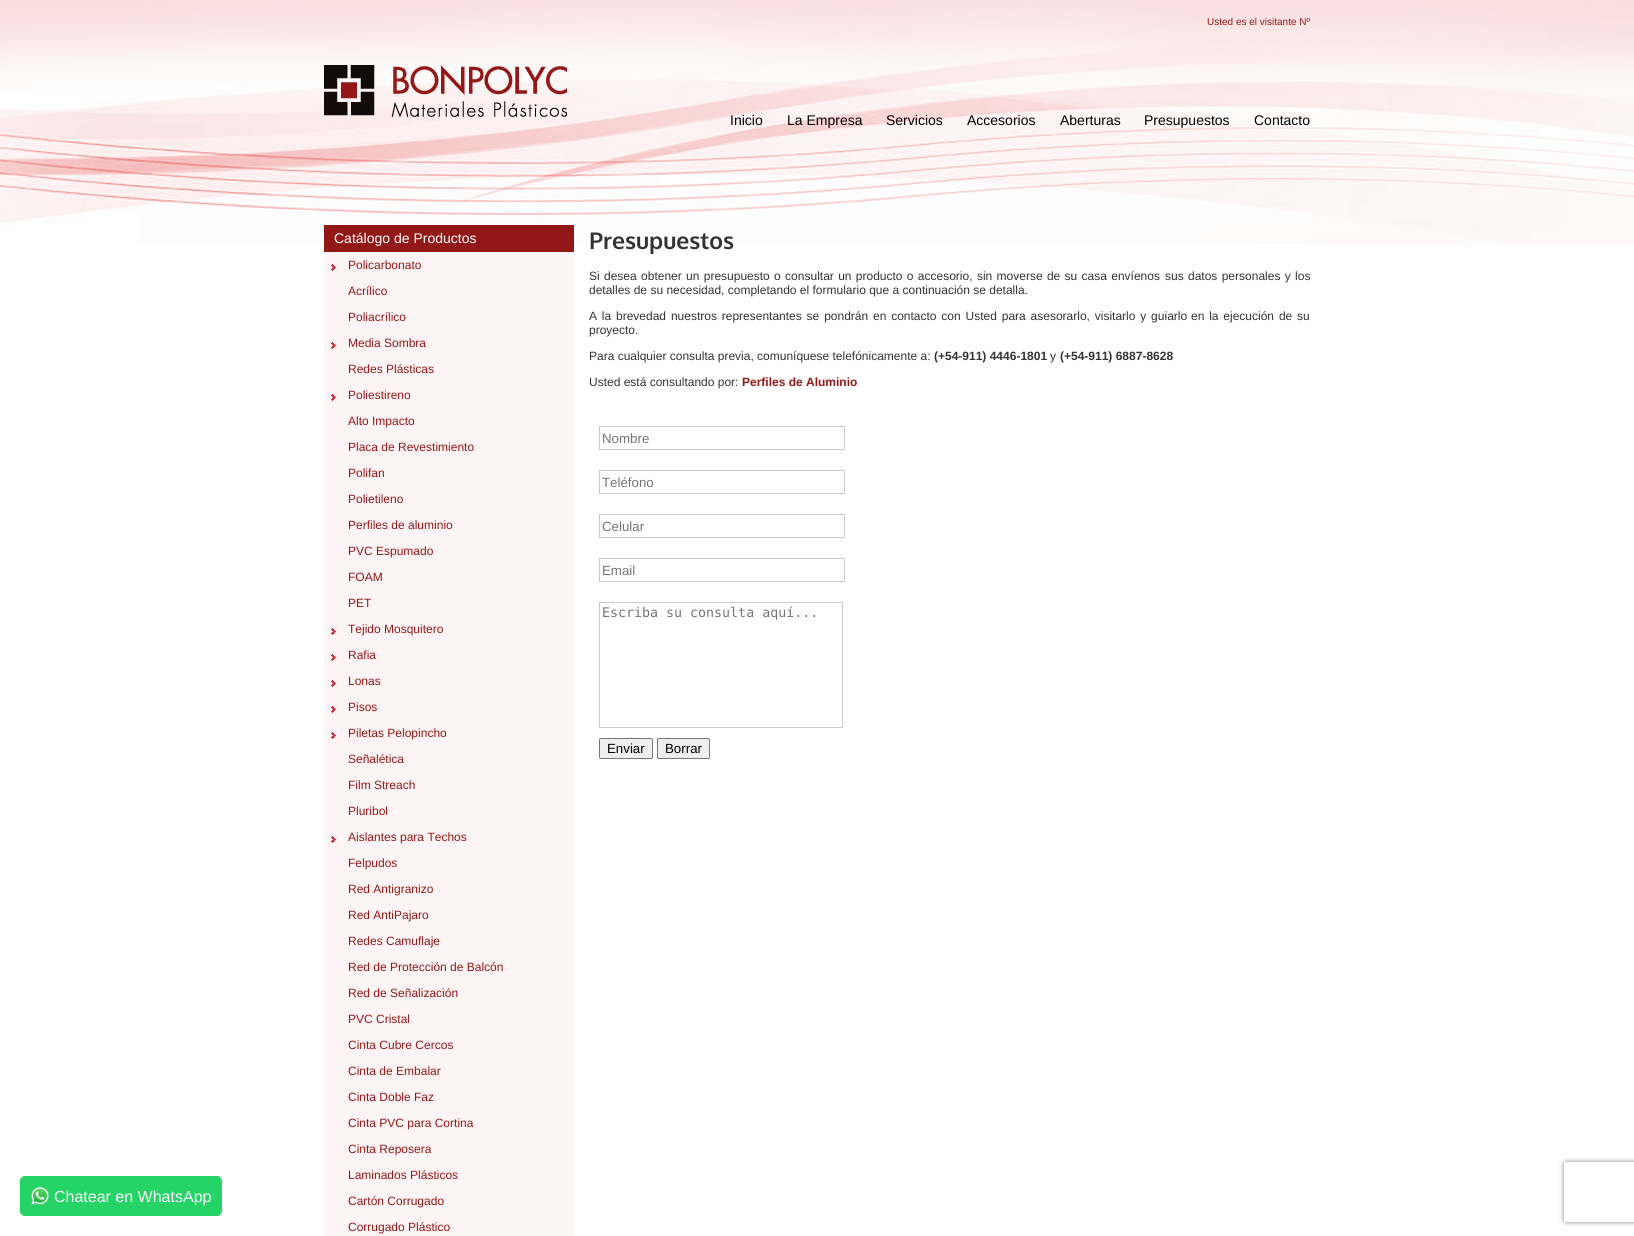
#include <cairo.h>
#include <math.h>
#include <stddef.h>


static void rgb(cairo_t *cr, int r, int g, int b)
{
	cairo_set_source_rgb(cr, r / 255.0, g / 255.0, b / 255.0);
}

static void face(cairo_t *cr, const char *family, double size, int italic, int bold)
{
	cairo_select_font_face(cr, family, italic ? CAIRO_FONT_SLANT_ITALIC : CAIRO_FONT_SLANT_NORMAL,
		bold ? CAIRO_FONT_WEIGHT_BOLD : CAIRO_FONT_WEIGHT_NORMAL);
	cairo_set_font_size(cr, size);
}

static void label(cairo_t *cr, double x, double y, const char *s)
{
	cairo_move_to(cr, x, y);
	cairo_show_text(cr, s);
}

static void tracked(cairo_t *cr, double x, double y, const char *s, double letter, double word)
{
	cairo_move_to(cr, x, y);
	while (*s) {
		char ch[5] = {0};
		int n = 0;
		do ch[n++] = *s++; while ((*s & 0xC0) == 0x80);
		cairo_show_text(cr, ch);
		cairo_rel_move_to(cr, letter + word * (*ch == ' '), 0);
	}
}

static void rect(cairo_t *cr, double x, double y, double w, double h)
{
	cairo_rectangle(cr, x, y, w, h);
	cairo_fill(cr);
}

static void rrect(cairo_t *cr, double x, double y, double w, double h, double r)
{
	cairo_new_sub_path(cr);
	cairo_arc(cr, x + w - r, y + h - r, r, 0, M_PI / 2);
	cairo_arc(cr, x + r, y + h - r, r, M_PI / 2, M_PI);
	cairo_arc(cr, x + r, y + r, r, M_PI, 1.5 * M_PI);
	cairo_arc(cr, x + w - r, y + r, r, 1.5 * M_PI, 2 * M_PI);
	cairo_close_path(cr);
}

static void soft_shadow(cairo_t *cr, double x, double y, double w, double h, double r, double blur, double alpha)
{
	cairo_push_group_with_content(cr, CAIRO_CONTENT_ALPHA);
	cairo_set_operator(cr, CAIRO_OPERATOR_SOURCE);
	for (int i = 15; i >= -15 && fmin(w, h) + blur * i / 3 > 0; i -= 2) {
		double e = blur * i / 6;
		cairo_set_source_rgba(cr, 0, 0, 0, alpha * erfc((i - 1) / 8.5) / 2);
		rrect(cr, x - e, y - e, w + 2 * e, h + 2 * e, fmax(0, fmin(r + e + blur * .6, fmin(w, h) / 2 + e)));
		cairo_fill(cr);
	}
	cairo_pattern_t *soft = cairo_pop_group(cr);
	cairo_mask(cr, soft);
	cairo_pattern_destroy(soft);
}

static void image(cairo_t *cr, const char *path, double x, double y, double w, double h)
{
	cairo_surface_t *image = cairo_image_surface_create_from_png(path);
	cairo_save(cr);
	cairo_set_source_surface(cr, image, x, y);
	cairo_rectangle(cr, x, y, w, h);
	cairo_fill(cr);
	cairo_restore(cr);
	cairo_surface_destroy(image);
}

static void draw(cairo_t *cr) {
	rgb(cr, 255, 255, 255);
	cairo_paint(cr);
	image(cr, "image0.png", 0, 0, 1634, 244);
	rgb(cr, 37, 211, 102);
	rrect(cr, 20, 1176, 202, 40, 5);
	cairo_fill(cr);
	image(cr, "image1.png", 31, 1187, 19, 18);
	face(cr, "Liberation Sans", 16, 0, 0);
	rgb(cr, 255, 255, 255);
	label(cr, 54, 1202, "Chatear en WhatsApp");
	face(cr, "Liberation Sans", 10, 0, 0);
	rgb(cr, 146, 24, 24);
	label(cr, 1207, 25, "Usted es el visitante Nº");
	image(cr, "image2.png", 324, 65, 243, 52);
	face(cr, "Liberation Sans", 14, 0, 0);
	rgb(cr, 0, 0, 0);
	label(cr, 730, 125, "Inicio");
	label(cr, 787, 125, "La Empresa");
	label(cr, 886, 125, "Servicios");
	label(cr, 967, 125, "Accesorios");
	label(cr, 1060, 125, "Aberturas");
	label(cr, 1144, 125, "Presupuestos");
	label(cr, 1254, 125, "Contacto");
	rgb(cr, 146, 24, 24);
	rect(cr, 324, 225, 250, 27);
	rgb(cr, 255, 255, 255);
	label(cr, 334, 243, "Catálogo de Productos");
	rgb(cr, 253, 245, 245);
	rect(cr, 324, 252, 250, 78);
	image(cr, "image3.png", 331, 264, 5, 7);
	face(cr, "Liberation Sans", 12, 0, 0);
	rgb(cr, 146, 24, 24);
	label(cr, 348, 269, "Policarbonato");
	label(cr, 348, 295, "Acrílico");
	label(cr, 348, 321, "Poliacrílico");
	rgb(cr, 253, 245, 245);
	rect(cr, 324, 330, 250, 52);
	image(cr, "image3.png", 331, 342, 5, 7);
	rgb(cr, 146, 24, 24);
	label(cr, 348, 347, "Media Sombra");
	label(cr, 348, 373, "Redes Plásticas");
	rgb(cr, 253, 245, 245);
	rect(cr, 324, 382, 250, 338);
	image(cr, "image3.png", 331, 394, 5, 7);
	rgb(cr, 146, 24, 24);
	label(cr, 348, 399, "Poliestireno");
	label(cr, 348, 425, "Alto Impacto");
	label(cr, 348, 451, "Placa de Revestimiento");
	label(cr, 348, 477, "Polifan");
	label(cr, 348, 503, "Polietileno");
	label(cr, 348, 529, "Perfiles de aluminio");
	label(cr, 348, 555, "PVC Espumado");
	label(cr, 348, 581, "FOAM");
	label(cr, 348, 607, "PET");
	image(cr, "image3.png", 331, 628, 5, 7);
	label(cr, 348, 633, "Tejido Mosquitero");
	image(cr, "image3.png", 331, 654, 5, 7);
	label(cr, 348, 659, "Rafia");
	image(cr, "image3.png", 331, 680, 5, 7);
	label(cr, 348, 685, "Lonas");
	image(cr, "image3.png", 331, 706, 5, 7);
	label(cr, 348, 711, "Pisos");
	rgb(cr, 253, 245, 245);
	rect(cr, 324, 720, 250, 104);
	image(cr, "image3.png", 331, 732, 5, 7);
	rgb(cr, 146, 24, 24);
	label(cr, 348, 737, "Piletas Pelopincho");
	label(cr, 348, 763, "Señalética");
	label(cr, 348, 789, "Film Streach");
	label(cr, 348, 815, "Pluribol");
	rgb(cr, 253, 245, 245);
	rect(cr, 324, 824, 250, 412);
	image(cr, "image3.png", 331, 836, 5, 7);
	rgb(cr, 146, 24, 24);
	label(cr, 348, 841, "Aislantes para Techos");
	label(cr, 348, 867, "Felpudos");
	label(cr, 348, 893, "Red Antigranizo");
	label(cr, 348, 919, "Red AntiPajaro");
	label(cr, 348, 945, "Redes Camuflaje");
	label(cr, 348, 971, "Red de Protección de Balcón");
	label(cr, 348, 997, "Red de Señalización");
	label(cr, 348, 1023, "PVC Cristal");
	label(cr, 348, 1049, "Cinta Cubre Cercos");
	label(cr, 348, 1075, "Cinta de Embalar");
	label(cr, 348, 1101, "Cinta Doble Faz");
	label(cr, 348, 1127, "Cinta PVC para Cortina");
	label(cr, 348, 1153, "Cinta Reposera");
	label(cr, 348, 1179, "Laminados Plásticos");
	label(cr, 348, 1205, "Cartón Corrugado");
	label(cr, 348, 1231, "Corrugado Plástico");
	face(cr, "Oxygen", 23, 0, 1);
	rgb(cr, 51, 51, 51);
	label(cr, 589, 249, "Presupuestos");
	face(cr, "Liberation Sans", 12, 0, 0);
	tracked(cr, 589, 280, "Si desea obtener un presupuesto o consultar un producto o accesorio, sin moverse de su casa envíenos", 0, 1);
	tracked(cr, 1165, 280, "sus datos personales y los", 0, 1);
	label(cr, 589, 294, "detalles de su necesidad, completando el formulario que a continuación se detalla.");
	tracked(cr, 589, 320, "A la brevedad nuestros representantes se pondrán en contacto con Usted para asesorarlo, visitarlo y guiarlo", 0, 1.5);
	tracked(cr, 1191, 320, "en la ejecución de su", 0, 1.5);
	label(cr, 589, 334, "proyecto.");
	label(cr, 589, 360, "Para cualquier consulta previa, comuníquese telefónicamente a:");
	face(cr, "Liberation Sans", 12, 0, 1);
	label(cr, 934, 360, "(+54-911) 4446-1801");
	face(cr, "Liberation Sans", 12, 0, 0);
	label(cr, 1050, 360, "y");
	face(cr, "Liberation Sans", 12, 0, 1);
	label(cr, 1060, 360, "(+54-911) 6887-8628");
	face(cr, "Liberation Sans", 12, 0, 0);
	label(cr, 589, 386, "Usted está consultando por:");
	face(cr, "Liberation Sans", 12, 0, 1);
	rgb(cr, 146, 24, 24);
	label(cr, 742, 386, "Perfiles de Aluminio");
	cairo_rectangle(cr, 599.5, 426.5, 245, 23);
	rgb(cr, 204, 204, 204);
	cairo_set_line_width(cr, 1);
	cairo_stroke(cr);
	face(cr, "Liberation Sans", 13.3, 0, 0);
	rgb(cr, 117, 117, 117);
	label(cr, 602, 443, "Nombre");
	cairo_rectangle(cr, 599.5, 470.5, 245, 23);
	rgb(cr, 204, 204, 204);
	cairo_stroke(cr);
	rgb(cr, 117, 117, 117);
	label(cr, 602, 487, "Teléfono");
	cairo_rectangle(cr, 599.5, 514.5, 245, 23);
	rgb(cr, 204, 204, 204);
	cairo_stroke(cr);
	rgb(cr, 117, 117, 117);
	label(cr, 602, 531, "Celular");
	cairo_rectangle(cr, 599.5, 558.5, 245, 23);
	rgb(cr, 204, 204, 204);
	cairo_stroke(cr);
	rgb(cr, 117, 117, 117);
	label(cr, 602, 575, "Email");
	cairo_rectangle(cr, 599.5, 602.5, 243, 125);
	rgb(cr, 204, 204, 204);
	cairo_stroke(cr);
	face(cr, "DejaVu Sans Mono", 13.3, 0, 0);
	rgb(cr, 117, 117, 117);
	label(cr, 602, 617, "Escriba su consulta aquí...");
	rgb(cr, 239, 239, 239);
	rrect(cr, 599.5, 738.5, 53, 20, 1.5);
	cairo_fill_preserve(cr);
	rgb(cr, 118, 118, 118);
	cairo_stroke(cr);
	face(cr, "Liberation Sans", 13.3, 0, 0);
	rgb(cr, 0, 0, 0);
	label(cr, 607, 753, "Enviar");
	rgb(cr, 239, 239, 239);
	rrect(cr, 657.5, 738.5, 52, 20, 1.5);
	cairo_fill_preserve(cr);
	rgb(cr, 118, 118, 118);
	cairo_stroke(cr);
	rgb(cr, 0, 0, 0);
	label(cr, 665, 753, "Borrar");
	cairo_save(cr);
	cairo_set_fill_rule(cr, CAIRO_FILL_RULE_EVEN_ODD);
	cairo_new_path(cr);
	cairo_move_to(cr, 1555, 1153);
	cairo_line_to(cr, 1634, 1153);
	cairo_line_to(cr, 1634, 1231);
	cairo_line_to(cr, 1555, 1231);
	cairo_close_path(cr);
	cairo_move_to(cr, 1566, 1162);
	cairo_line_to(cr, 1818, 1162);
	cairo_curve_to(cr, 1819, 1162, 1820, 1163, 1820, 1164);
	cairo_line_to(cr, 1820, 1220);
	cairo_curve_to(cr, 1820, 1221, 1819, 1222, 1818, 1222);
	cairo_line_to(cr, 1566, 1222);
	cairo_curve_to(cr, 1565, 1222, 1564, 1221, 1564, 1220);
	cairo_line_to(cr, 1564, 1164);
	cairo_curve_to(cr, 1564, 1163, 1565, 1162, 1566, 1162);
	cairo_close_path(cr);
	cairo_clip(cr);
	rgb(cr, 128, 128, 128);
	soft_shadow(cr, 1564, 1162, 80, 60, 2, 2.5, 1);
	cairo_restore(cr);
}

int main(void) {
	cairo_surface_t *surface = cairo_image_surface_create(CAIRO_FORMAT_RGB24, 1634, 1236);
	cairo_t *cr = cairo_create(surface);
	cairo_font_options_t *options = cairo_font_options_create();
	cairo_font_options_set_hint_metrics(options, CAIRO_HINT_METRICS_OFF);
	cairo_font_options_set_hint_style(options, CAIRO_HINT_STYLE_NONE);
	cairo_set_font_options(cr, options);
	cairo_set_miter_limit(cr, 4);
	draw(cr);
	cairo_surface_write_to_png(surface, "render.png");
	cairo_font_options_destroy(options);
	cairo_destroy(cr);
	cairo_surface_destroy(surface);
	return 0;
}
